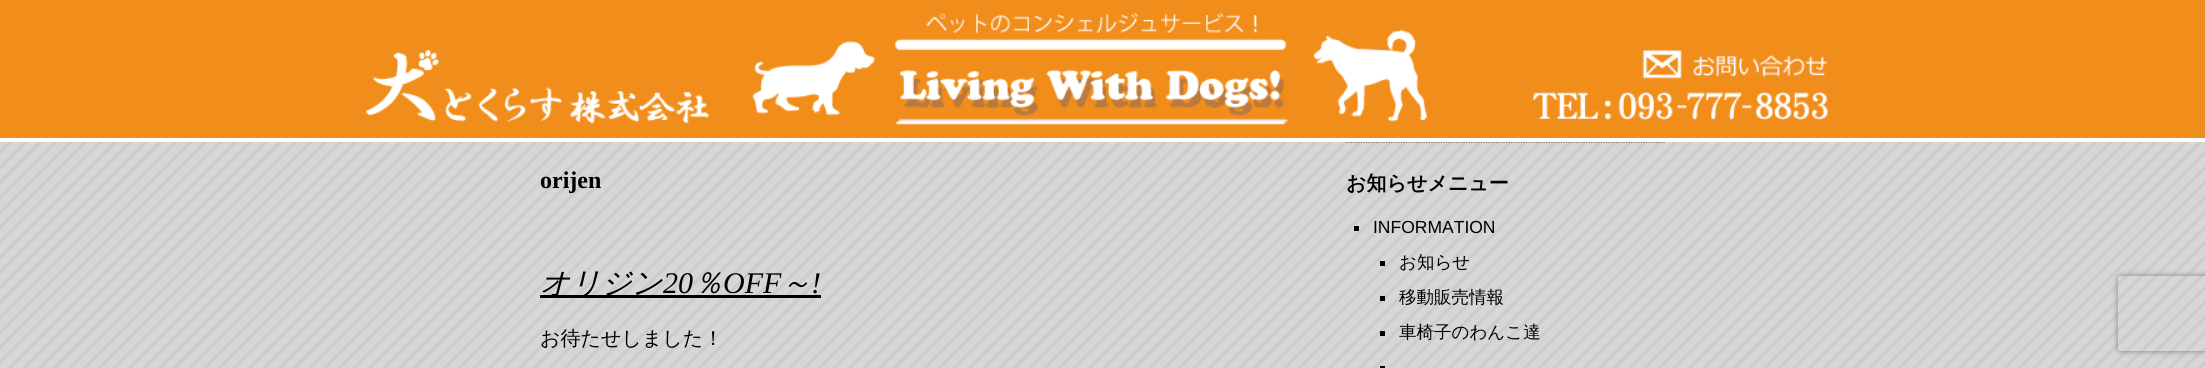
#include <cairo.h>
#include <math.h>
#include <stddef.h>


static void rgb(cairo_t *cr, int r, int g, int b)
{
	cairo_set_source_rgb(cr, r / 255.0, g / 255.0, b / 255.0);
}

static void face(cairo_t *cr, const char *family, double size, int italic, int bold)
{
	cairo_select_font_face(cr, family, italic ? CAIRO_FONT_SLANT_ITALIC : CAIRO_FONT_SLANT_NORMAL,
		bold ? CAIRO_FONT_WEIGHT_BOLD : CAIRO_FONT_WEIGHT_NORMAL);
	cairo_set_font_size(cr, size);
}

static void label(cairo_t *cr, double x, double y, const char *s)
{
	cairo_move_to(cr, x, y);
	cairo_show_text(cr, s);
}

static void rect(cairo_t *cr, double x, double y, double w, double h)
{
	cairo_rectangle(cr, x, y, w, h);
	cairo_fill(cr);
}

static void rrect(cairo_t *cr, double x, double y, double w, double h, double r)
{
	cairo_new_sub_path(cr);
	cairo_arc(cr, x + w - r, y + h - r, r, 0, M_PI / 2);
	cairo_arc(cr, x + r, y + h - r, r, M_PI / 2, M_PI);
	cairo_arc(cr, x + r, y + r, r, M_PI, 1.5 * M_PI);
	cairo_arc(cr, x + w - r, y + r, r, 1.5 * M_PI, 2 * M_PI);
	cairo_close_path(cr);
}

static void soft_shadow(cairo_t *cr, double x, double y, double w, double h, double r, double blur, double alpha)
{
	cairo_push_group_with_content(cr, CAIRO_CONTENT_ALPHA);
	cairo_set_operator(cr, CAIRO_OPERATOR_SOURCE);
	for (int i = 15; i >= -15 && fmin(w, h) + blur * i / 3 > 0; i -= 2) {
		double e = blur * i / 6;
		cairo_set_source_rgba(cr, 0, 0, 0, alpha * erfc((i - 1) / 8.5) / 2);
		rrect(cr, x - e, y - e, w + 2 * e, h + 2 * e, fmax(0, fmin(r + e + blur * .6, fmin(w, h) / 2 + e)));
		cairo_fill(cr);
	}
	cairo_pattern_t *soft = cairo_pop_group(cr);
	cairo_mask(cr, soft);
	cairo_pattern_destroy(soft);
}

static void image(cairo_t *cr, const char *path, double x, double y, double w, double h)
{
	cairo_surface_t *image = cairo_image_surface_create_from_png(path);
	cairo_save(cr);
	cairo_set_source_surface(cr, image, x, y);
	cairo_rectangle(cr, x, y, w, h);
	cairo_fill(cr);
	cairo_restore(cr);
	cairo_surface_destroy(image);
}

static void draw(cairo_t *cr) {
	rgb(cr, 255, 255, 255);
	cairo_paint(cr);
	image(cr, "image0.png", 0, 142, 2205, 226);
	rgb(cr, 241, 141, 27);
	rect(cr, 0, 0, 2205, 138);
	cairo_new_path(cr);
	cairo_move_to(cr, 1346, 142);
	cairo_line_to(cr, 1665, 142);
	rgb(cr, 57, 57, 57);
	cairo_set_line_width(cr, 1.2);
	cairo_set_dash(cr, (double[]){1.25, 1.25}, 2, 0);
	cairo_stroke(cr);
	rgb(cr, 255, 255, 255);
	rect(cr, 1346, 141, 319, 1);
	image(cr, "image1.png", 365, 50, 344, 74);
	image(cr, "image2.png", 752, 12, 676, 113);
	image(cr, "image3.png", 1642, 50, 186, 29);
	image(cr, "image4.png", 1532, 92, 296, 28);
	face(cr, "Liberation Serif", 24, 0, 1);
	rgb(cr, 0, 0, 0);
	label(cr, 540, 188, "orijen");
	rect(cr, 540, 295, 281, 3);
	face(cr, "WenQuanYi Zen Hei Medium", 30, 1, 0);
	label(cr, 540, 293, "オリジン");
	face(cr, "Liberation Serif", 30, 1, 0);
	label(cr, 663, 293, "20");
	face(cr, "WenQuanYi Zen Hei Medium", 30, 1, 0);
	label(cr, 693, 293, "％");
	face(cr, "Liberation Serif", 30, 1, 0);
	label(cr, 723, 293, "OFF");
	face(cr, "WenQuanYi Zen Hei Medium", 30, 1, 0);
	label(cr, 781, 293, "～");
	face(cr, "Liberation Serif", 30, 1, 0);
	label(cr, 811, 293, "!");
	face(cr, "WenQuanYi Zen Hei Medium", 20, 0, 0);
	label(cr, 540, 345, "お待たせしました！");
	face(cr, "WenQuanYi Zen Hei", 20, 0, 1);
	label(cr, 1346, 190, "お知らせメニュー");
	rect(cr, 1354, 226, 5, 5);
	face(cr, "Liberation Sans", 17.5, 0, 0);
	label(cr, 1373, 233, "INFORMATION");
	rect(cr, 1380, 261, 5, 5);
	face(cr, "WenQuanYi Zen Hei Medium", 17.5, 0, 0);
	label(cr, 1399, 268, "お知らせ");
	rect(cr, 1380, 296, 5, 5);
	label(cr, 1399, 303, "移動販売情報");
	rect(cr, 1380, 331, 5, 5);
	label(cr, 1399, 338, "車椅子のわんこ達");
	rect(cr, 1380, 366, 5, 2);
	cairo_save(cr);
	cairo_set_fill_rule(cr, CAIRO_FILL_RULE_EVEN_ODD);
	cairo_new_path(cr);
	cairo_move_to(cr, 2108, 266);
	cairo_line_to(cr, 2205, 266);
	cairo_line_to(cr, 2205, 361);
	cairo_line_to(cr, 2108, 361);
	cairo_close_path(cr);
	cairo_move_to(cr, 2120.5, 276);
	cairo_line_to(cr, 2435.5, 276);
	cairo_curve_to(cr, 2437, 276, 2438, 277, 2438, 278.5);
	cairo_line_to(cr, 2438, 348.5);
	cairo_curve_to(cr, 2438, 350, 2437, 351, 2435.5, 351);
	cairo_line_to(cr, 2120.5, 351);
	cairo_curve_to(cr, 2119, 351, 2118, 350, 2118, 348.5);
	cairo_line_to(cr, 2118, 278.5);
	cairo_curve_to(cr, 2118, 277, 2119, 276, 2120.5, 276);
	cairo_close_path(cr);
	cairo_clip(cr);
	rgb(cr, 128, 128, 128);
	soft_shadow(cr, 2118, 276, 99, 75, 2.5, 3, 1);
	cairo_restore(cr);
}

int main(void) {
	cairo_surface_t *surface = cairo_image_surface_create(CAIRO_FORMAT_RGB24, 2205, 368);
	cairo_t *cr = cairo_create(surface);
	cairo_font_options_t *options = cairo_font_options_create();
	cairo_font_options_set_hint_metrics(options, CAIRO_HINT_METRICS_OFF);
	cairo_font_options_set_hint_style(options, CAIRO_HINT_STYLE_NONE);
	cairo_set_font_options(cr, options);
	cairo_set_miter_limit(cr, 4);
	draw(cr);
	cairo_surface_write_to_png(surface, "render.png");
	cairo_font_options_destroy(options);
	cairo_destroy(cr);
	cairo_surface_destroy(surface);
	return 0;
}
